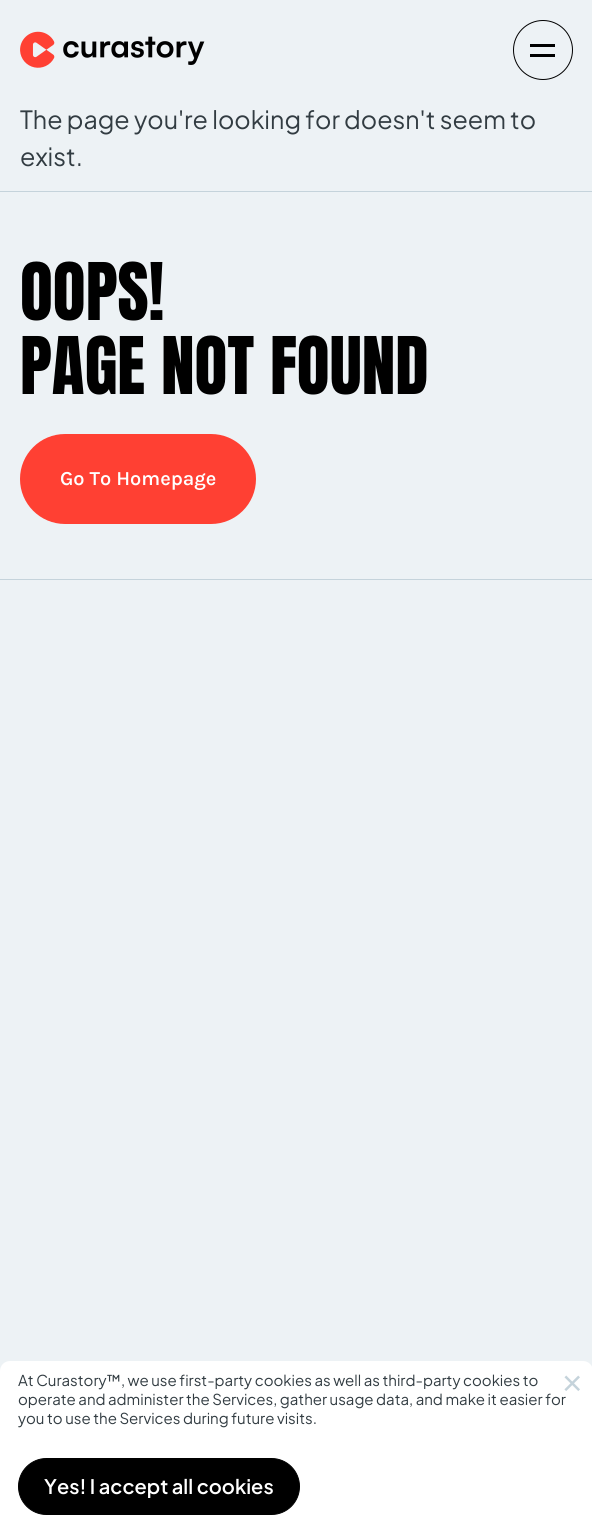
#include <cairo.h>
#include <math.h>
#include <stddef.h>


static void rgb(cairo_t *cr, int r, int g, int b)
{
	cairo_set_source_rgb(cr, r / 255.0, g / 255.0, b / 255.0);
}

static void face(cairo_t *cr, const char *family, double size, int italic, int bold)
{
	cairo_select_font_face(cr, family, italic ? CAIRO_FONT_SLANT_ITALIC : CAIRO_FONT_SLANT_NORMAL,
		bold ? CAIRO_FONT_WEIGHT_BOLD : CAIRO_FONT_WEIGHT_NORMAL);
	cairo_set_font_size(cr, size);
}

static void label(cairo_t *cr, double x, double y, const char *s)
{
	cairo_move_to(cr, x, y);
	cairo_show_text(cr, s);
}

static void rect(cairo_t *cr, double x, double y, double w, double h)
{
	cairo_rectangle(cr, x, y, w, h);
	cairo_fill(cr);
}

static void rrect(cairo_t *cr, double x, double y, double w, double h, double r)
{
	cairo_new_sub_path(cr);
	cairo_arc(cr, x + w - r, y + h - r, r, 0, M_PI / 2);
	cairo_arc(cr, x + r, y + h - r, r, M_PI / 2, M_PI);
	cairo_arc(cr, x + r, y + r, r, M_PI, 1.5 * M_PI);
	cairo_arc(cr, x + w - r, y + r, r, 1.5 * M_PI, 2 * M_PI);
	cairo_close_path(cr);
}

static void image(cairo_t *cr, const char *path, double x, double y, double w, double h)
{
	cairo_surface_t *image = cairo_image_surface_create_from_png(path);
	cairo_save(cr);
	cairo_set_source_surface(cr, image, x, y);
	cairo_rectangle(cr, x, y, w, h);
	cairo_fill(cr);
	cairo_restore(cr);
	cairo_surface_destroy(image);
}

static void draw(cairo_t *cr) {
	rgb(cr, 237, 242, 245);
	cairo_paint(cr);
	image(cr, "image0.png", 20, 31, 35, 37);
	image(cr, "image1.png", 63, 36, 142, 29);
	cairo_arc(cr, 543, 50, 29.5, 0, 2 * M_PI);
	rgb(cr, 0, 0, 0);
	cairo_set_line_width(cr, 1);
	cairo_stroke(cr);
	rect(cr, 530, 44, 25, 3);
	rect(cr, 530, 54, 25, 3);
	face(cr, "Plus Jakarta Sans", 25, 0, 0);
	rgb(cr, 50, 60, 66);
	label(cr, 20, 129, "The page you're looking for doesn't seem to");
	label(cr, 20, 166, "exist.");
	rgb(cr, 197, 211, 219);
	rect(cr, 0, 191, 592, 1);
	rect(cr, 0, 579, 592, 1);
	face(cr, "Anton", 67.5, 0, 0);
	rgb(cr, 0, 0, 0);
	label(cr, 20, 320, "OOPS!");
	label(cr, 20, 394, "PAGE NOT FOUND");
	rgb(cr, 255, 64, 51);
	rrect(cr, 20, 434, 236, 90, 45);
	cairo_fill(cr);
	face(cr, "Karla SemiBold", 20, 0, 0);
	rgb(cr, 255, 255, 255);
	label(cr, 60, 485, "Go To Homepage");
	cairo_new_path(cr);
	cairo_move_to(cr, 10, 1361);
	cairo_line_to(cr, 583, 1361);
	cairo_curve_to(cr, 588.5, 1361, 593, 1365.5, 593, 1371);
	cairo_line_to(cr, 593, 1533);
	cairo_line_to(cr, 0, 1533);
	cairo_line_to(cr, 0, 1371);
	cairo_curve_to(cr, 0, 1365.5, 4.5, 1361, 10, 1361);
	cairo_close_path(cr);
	cairo_fill(cr);
	face(cr, "Plus Jakarta Sans", 15, 0, 0);
	rgb(cr, 50, 60, 66);
	label(cr, 18, 1386, "At Curastory™, we use first-party cookies as well as third-party cookies to");
	label(cr, 18, 1405, "operate and administer the Services, gather usage data, and make it easier for");
	label(cr, 18, 1424, "you to use the Services during future visits.");
	face(cr, "Liberation Sans", 35, 0, 0);
	rgb(cr, 197, 211, 219);
	label(cr, 562, 1395, "×");
	rgb(cr, 0, 0, 0);
	rrect(cr, 18.5, 1458.5, 281, 56, 28);
	cairo_fill_preserve(cr);
	cairo_stroke(cr);
	face(cr, "Plus Jakarta Sans SemiBold", 20, 0, 0);
	rgb(cr, 255, 255, 255);
	label(cr, 44, 1494, "Yes! I accept all cookies");
}

int main(void) {
	cairo_surface_t *surface = cairo_image_surface_create(CAIRO_FORMAT_RGB24, 592, 1532);
	cairo_t *cr = cairo_create(surface);
	cairo_font_options_t *options = cairo_font_options_create();
	cairo_font_options_set_hint_metrics(options, CAIRO_HINT_METRICS_OFF);
	cairo_font_options_set_hint_style(options, CAIRO_HINT_STYLE_NONE);
	cairo_set_font_options(cr, options);
	cairo_set_miter_limit(cr, 4);
	draw(cr);
	cairo_surface_write_to_png(surface, "render.png");
	cairo_font_options_destroy(options);
	cairo_destroy(cr);
	cairo_surface_destroy(surface);
	return 0;
}
